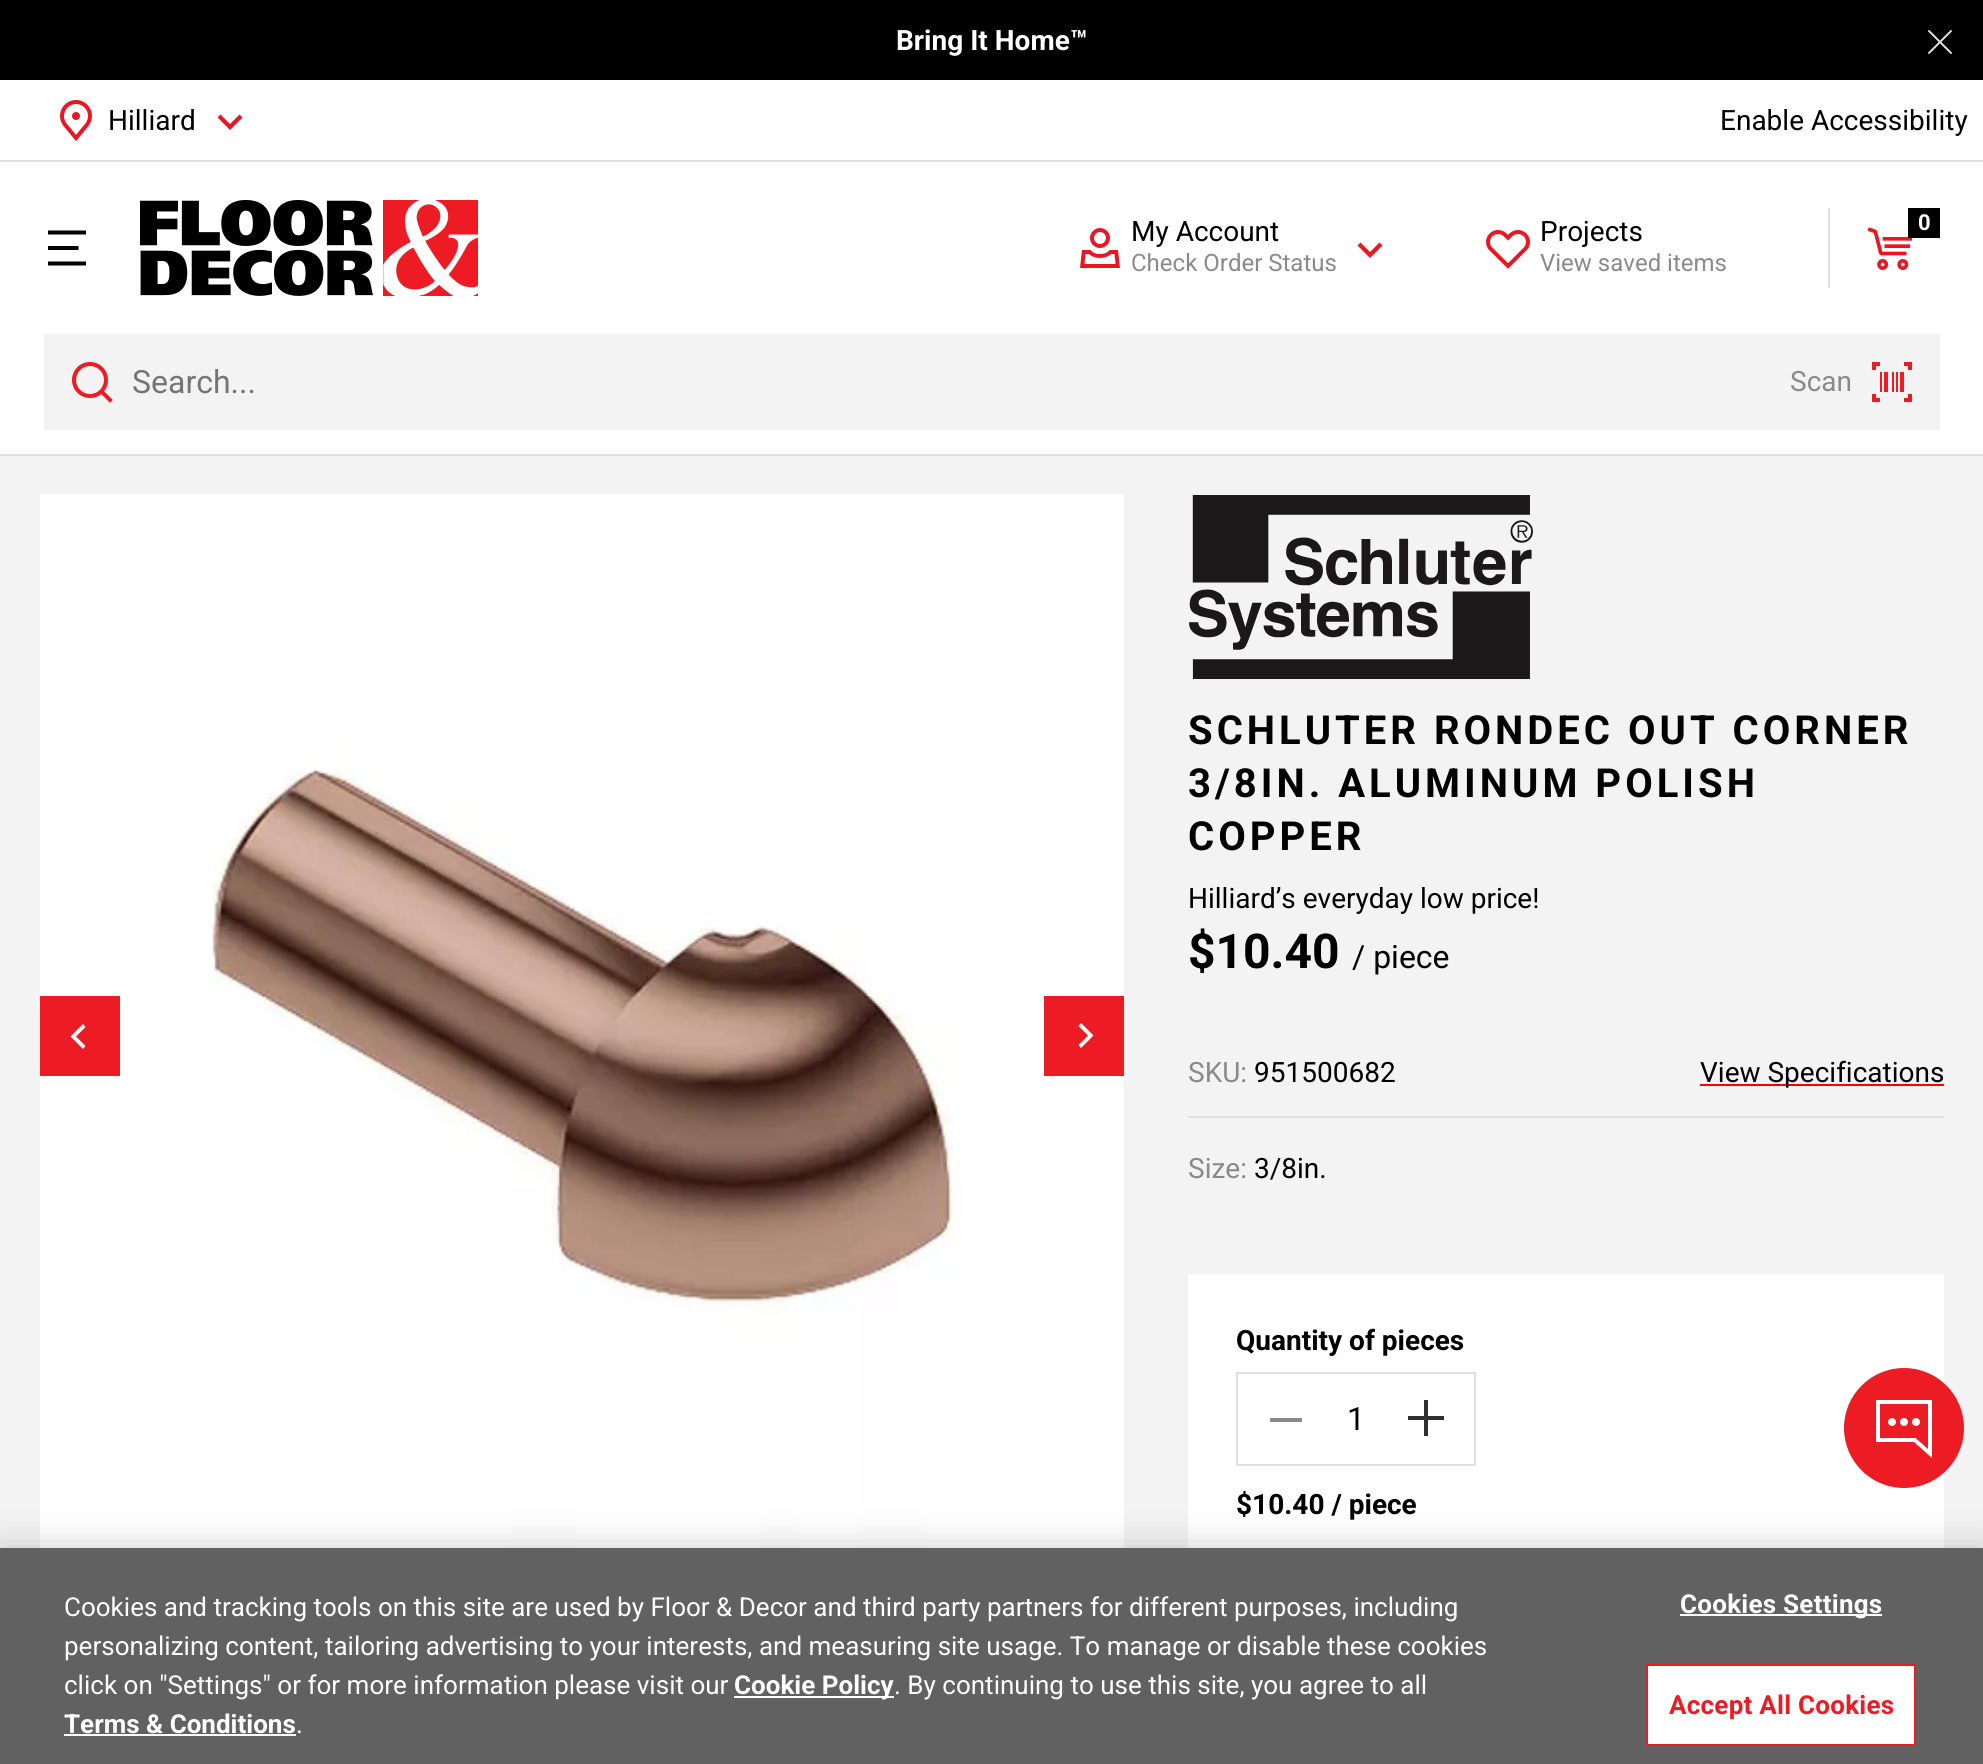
#include <cairo.h>
#include <math.h>
#include <stddef.h>


static void rgb(cairo_t *cr, int r, int g, int b)
{
	cairo_set_source_rgb(cr, r / 255.0, g / 255.0, b / 255.0);
}

static void face(cairo_t *cr, const char *family, double size, int italic, int bold)
{
	cairo_select_font_face(cr, family, italic ? CAIRO_FONT_SLANT_ITALIC : CAIRO_FONT_SLANT_NORMAL,
		bold ? CAIRO_FONT_WEIGHT_BOLD : CAIRO_FONT_WEIGHT_NORMAL);
	cairo_set_font_size(cr, size);
}

static void label(cairo_t *cr, double x, double y, const char *s)
{
	cairo_move_to(cr, x, y);
	cairo_show_text(cr, s);
}

static void tracked(cairo_t *cr, double x, double y, const char *s, double letter, double word)
{
	cairo_move_to(cr, x, y);
	while (*s) {
		char ch[5] = {0};
		int n = 0;
		do ch[n++] = *s++; while ((*s & 0xC0) == 0x80);
		cairo_show_text(cr, ch);
		cairo_rel_move_to(cr, letter + word * (*ch == ' '), 0);
	}
}

static void rect(cairo_t *cr, double x, double y, double w, double h)
{
	cairo_rectangle(cr, x, y, w, h);
	cairo_fill(cr);
}

static void rrect(cairo_t *cr, double x, double y, double w, double h, double r)
{
	cairo_new_sub_path(cr);
	cairo_arc(cr, x + w - r, y + h - r, r, 0, M_PI / 2);
	cairo_arc(cr, x + r, y + h - r, r, M_PI / 2, M_PI);
	cairo_arc(cr, x + r, y + r, r, M_PI, 1.5 * M_PI);
	cairo_arc(cr, x + w - r, y + r, r, 1.5 * M_PI, 2 * M_PI);
	cairo_close_path(cr);
}

static void soft_shadow(cairo_t *cr, double x, double y, double w, double h, double r, double blur, double alpha)
{
	cairo_push_group_with_content(cr, CAIRO_CONTENT_ALPHA);
	cairo_set_operator(cr, CAIRO_OPERATOR_SOURCE);
	for (int i = 15; i >= -15 && fmin(w, h) + blur * i / 3 > 0; i -= 2) {
		double e = blur * i / 6;
		cairo_set_source_rgba(cr, 0, 0, 0, alpha * erfc((i - 1) / 8.5) / 2);
		rrect(cr, x - e, y - e, w + 2 * e, h + 2 * e, fmax(0, fmin(r + e + blur * .6, fmin(w, h) / 2 + e)));
		cairo_fill(cr);
	}
	cairo_pattern_t *soft = cairo_pop_group(cr);
	cairo_mask(cr, soft);
	cairo_pattern_destroy(soft);
}

static void image(cairo_t *cr, const char *path, double x, double y, double w, double h)
{
	cairo_surface_t *image = cairo_image_surface_create_from_png(path);
	cairo_save(cr);
	cairo_set_source_surface(cr, image, x, y);
	cairo_rectangle(cr, x, y, w, h);
	cairo_fill(cr);
	cairo_restore(cr);
	cairo_surface_destroy(image);
}

static void draw(cairo_t *cr) {
	rgb(cr, 243, 243, 243);
	cairo_paint(cr);
	rgb(cr, 0, 0, 0);
	rect(cr, 0, 0, 1983, 80);
	face(cr, "Roboto", 28, 0, 1);
	rgb(cr, 255, 255, 255);
	label(cr, 896, 50, "Bring It Home™");
	image(cr, "image0.png", 1928, 30, 24, 24);
	rect(cr, 0, 80, 1983, 374);
	rgb(cr, 223, 223, 223);
	rect(cr, 0, 454, 1983, 2);
	image(cr, "image1.png", 60, 100, 32, 41);
	face(cr, "Roboto", 28, 0, 0);
	rgb(cr, 0, 0, 0);
	label(cr, 108, 130, "Hilliard");
	rgb(cr, 234, 23, 34);
	cairo_set_fill_rule(cr, CAIRO_FILL_RULE_EVEN_ODD);
	cairo_new_path(cr);
	cairo_move_to(cr, 239.5, 114.5);
	cairo_line_to(cr, 242.5, 117.5);
	cairo_line_to(cr, 230, 130);
	cairo_line_to(cr, 217.5, 117.5);
	cairo_line_to(cr, 220.5, 114.5);
	cairo_line_to(cr, 230, 124);
	cairo_close_path(cr);
	cairo_fill(cr);
	rgb(cr, 223, 223, 223);
	rect(cr, 0, 160, 1983, 2);
	rgb(cr, 0, 0, 0);
	cairo_new_path(cr);
	cairo_move_to(cr, 86, 261.5);
	cairo_line_to(cr, 86, 265.5);
	cairo_line_to(cr, 48, 265.5);
	cairo_line_to(cr, 48, 261.5);
	cairo_close_path(cr);
	cairo_move_to(cr, 78.5, 246);
	cairo_line_to(cr, 78.5, 250);
	cairo_line_to(cr, 48, 250);
	cairo_line_to(cr, 48, 246);
	cairo_close_path(cr);
	cairo_move_to(cr, 86, 230.5);
	cairo_line_to(cr, 86, 234.5);
	cairo_line_to(cr, 48, 234.5);
	cairo_line_to(cr, 48, 230.5);
	cairo_close_path(cr);
	cairo_fill(cr);
	image(cr, "image2.png", 140, 200, 338, 96);
	image(cr, "image3.png", 1080, 228, 40, 40);
	label(cr, 1131, 241, "My Account");
	rgb(cr, 234, 23, 34);
	cairo_new_path(cr);
	cairo_move_to(cr, 1379.5, 242.5);
	cairo_line_to(cr, 1382.5, 245.5);
	cairo_line_to(cr, 1370, 258);
	cairo_line_to(cr, 1357.5, 245.5);
	cairo_line_to(cr, 1360.5, 242.5);
	cairo_line_to(cr, 1370, 252);
	cairo_close_path(cr);
	cairo_fill(cr);
	face(cr, "Roboto", 24, 0, 0);
	rgb(cr, 138, 138, 138);
	label(cr, 1131, 271, "Check Order Status");
	image(cr, "image4.png", 1486, 230, 44, 39);
	face(cr, "Roboto", 28, 0, 0);
	rgb(cr, 0, 0, 0);
	label(cr, 1540, 241, "Projects");
	face(cr, "Roboto", 24, 0, 0);
	rgb(cr, 138, 138, 138);
	label(cr, 1540, 271, "View saved items");
	rgb(cr, 223, 223, 223);
	rect(cr, 1828, 208, 2, 80);
	image(cr, "image5.png", 1868, 227, 44, 43);
	rgb(cr, 0, 0, 0);
	rect(cr, 1908, 208, 32, 30);
	face(cr, "Roboto", 22, 0, 1);
	rgb(cr, 255, 255, 255);
	label(cr, 1918, 230, "0");
	rgb(cr, 243, 243, 243);
	rect(cr, 44, 334, 1896, 96);
	image(cr, "image6.png", 72, 362, 41, 41);
	face(cr, "Roboto", 32, 0, 0);
	rgb(cr, 117, 117, 117);
	label(cr, 132, 393, "Search...");
	face(cr, "Roboto", 28, 0, 0);
	rgb(cr, 138, 138, 138);
	label(cr, 1790, 391, "Scan");
	image(cr, "image7.png", 1872, 362, 40, 40);
	image(cr, "image8.png", 40, 494, 1084, 1054);
	rgb(cr, 237, 28, 36);
	rect(cr, 40, 996, 80, 80);
	rgb(cr, 255, 255, 255);
	cairo_set_fill_rule(cr, CAIRO_FILL_RULE_WINDING);
	cairo_new_path(cr);
	cairo_move_to(cr, 85.5, 1027);
	cairo_line_to(cr, 83, 1024);
	cairo_line_to(cr, 70.5, 1036.5);
	cairo_line_to(cr, 83, 1049);
	cairo_line_to(cr, 85.5, 1046);
	cairo_line_to(cr, 76, 1036.5);
	cairo_close_path(cr);
	cairo_fill(cr);
	rgb(cr, 237, 28, 36);
	rect(cr, 1044, 996, 80, 80);
	rgb(cr, 255, 255, 255);
	cairo_new_path(cr);
	cairo_move_to(cr, 1078.5, 1045);
	cairo_line_to(cr, 1081, 1048);
	cairo_line_to(cr, 1093.5, 1035.5);
	cairo_line_to(cr, 1081, 1023);
	cairo_line_to(cr, 1078.5, 1026);
	cairo_line_to(cr, 1088, 1035.5);
	cairo_close_path(cr);
	cairo_fill(cr);
	image(cr, "image9.png", 1189, 495, 344, 184);
	face(cr, "Roboto", 40, 0, 1);
	rgb(cr, 0, 0, 0);
	tracked(cr, 1188, 744, "SCHLUTER RONDEC OUT CORNER", 4, 0);
	tracked(cr, 1188, 797, "3/8IN. ALUMINUM POLISH", 4, 0);
	tracked(cr, 1188, 850, "COPPER", 4, 0);
	face(cr, "Roboto", 28, 0, 0);
	label(cr, 1188, 908, "Hilliard’s everyday low price!");
	face(cr, "Roboto", 48, 0, 1);
	label(cr, 1188, 968, "$10.40");
	face(cr, "Roboto", 32, 0, 0);
	label(cr, 1352, 968, "/ piece");
	face(cr, "Roboto", 28, 0, 0);
	rgb(cr, 138, 138, 138);
	label(cr, 1188, 1082, "SKU:");
	rgb(cr, 0, 0, 0);
	label(cr, 1254, 1082, "951500682");
	rgb(cr, 255, 0, 0);
	rect(cr, 1700, 1084, 244, 2);
	rgb(cr, 0, 0, 0);
	label(cr, 1700, 1082, "View Specifications");
	rgb(cr, 223, 223, 223);
	rect(cr, 1188, 1116, 756, 2);
	rgb(cr, 138, 138, 138);
	label(cr, 1188, 1178, "Size:");
	rgb(cr, 0, 0, 0);
	label(cr, 1254, 1178, "3/8in.");
	rgb(cr, 255, 255, 255);
	rect(cr, 1188, 1274, 756, 274);
	face(cr, "Roboto", 28, 0, 1);
	rgb(cr, 0, 0, 0);
	label(cr, 1236, 1350, "Quantity of pieces");
	cairo_rectangle(cr, 1237, 1373, 238, 92);
	rgb(cr, 223, 223, 223);
	cairo_stroke(cr);
	rgb(cr, 137, 137, 137);
	cairo_new_path(cr);
	cairo_move_to(cr, 1274, 1418);
	cairo_line_to(cr, 1302, 1418);
	cairo_line_to(cr, 1302, 1422);
	cairo_line_to(cr, 1270, 1422);
	cairo_line_to(cr, 1270, 1418);
	cairo_close_path(cr);
	cairo_fill(cr);
	face(cr, "Roboto", 32, 0, 0);
	rgb(cr, 0, 0, 0);
	label(cr, 1347, 1430, "1");
	rgb(cr, 48, 48, 48);
	cairo_set_fill_rule(cr, CAIRO_FILL_RULE_EVEN_ODD);
	cairo_new_path(cr);
	cairo_move_to(cr, 1428, 1400);
	cairo_line_to(cr, 1428, 1416);
	cairo_line_to(cr, 1444, 1416);
	cairo_line_to(cr, 1444, 1420);
	cairo_line_to(cr, 1428, 1420);
	cairo_line_to(cr, 1428, 1436);
	cairo_line_to(cr, 1424, 1436);
	cairo_line_to(cr, 1424, 1420);
	cairo_line_to(cr, 1408, 1420);
	cairo_line_to(cr, 1408, 1416);
	cairo_line_to(cr, 1424, 1416);
	cairo_line_to(cr, 1424, 1400);
	cairo_close_path(cr);
	cairo_fill(cr);
	face(cr, "Roboto", 28, 0, 1);
	rgb(cr, 0, 0, 0);
	label(cr, 1236, 1514, "$10.40 / piece");
	rgb(cr, 237, 28, 36);
	cairo_new_path(cr);
	cairo_arc(cr, 1904, 1428, 60, 0, 2 * M_PI);
	cairo_fill(cr);
	image(cr, "image10.png", 1876, 1400, 56, 58);
	face(cr, "Roboto", 28, 0, 0);
	rgb(cr, 0, 0, 0);
	label(cr, 1720, 130, "Enable Accessibility");
	rgb(cr, 0, 0, 0);
	soft_shadow(cr, 0, 1548, 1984, 216, 0, 18, 0.2);
	rgb(cr, 97, 97, 97);
	rect(cr, 0, 1548, 1983, 216);
	face(cr, "Roboto", 26.02, 0, 0);
	rgb(cr, 255, 255, 255);
	label(cr, 64, 1616, "Cookies and tracking tools on this site are used by Floor & Decor and third party partners for different purposes, including");
	label(cr, 64, 1655, "personalizing content, tailoring advertising to your interests, and measuring site usage. To manage or disable these cookies");
	label(cr, 64, 1694, "click on \"Settings\" or for more information please visit our");
	rect(cr, 734, 1696, 160, 2);
	face(cr, "Roboto", 26.02, 0, 1);
	label(cr, 734, 1694, "Cookie Policy");
	face(cr, "Roboto", 26.02, 0, 0);
	label(cr, 894, 1694, ". By continuing to use this site, you agree to all");
	face(cr, "Roboto", 26.02, 0, 1);
	label(cr, 64, 1733, "Terms & Conditions");
	rect(cr, 64, 1734, 232, 2);
	face(cr, "Roboto", 26.02, 0, 0);
	label(cr, 296, 1733, ".");
	rect(cr, 1680, 1614, 202, 2);
	face(cr, "Roboto", 26.02, 0, 1);
	tracked(cr, 1680, 1613, "Cookies Settings", 0.25, 0);
	cairo_rectangle(cr, 1647, 1665, 268, 80);
	cairo_fill_preserve(cr);
	rgb(cr, 237, 28, 36);
	cairo_stroke(cr);
	tracked(cr, 1669, 1714, "Accept All Cookies", 0.25, 0);
}

int main(void) {
	cairo_surface_t *surface = cairo_image_surface_create(CAIRO_FORMAT_RGB24, 1983, 1764);
	cairo_t *cr = cairo_create(surface);
	cairo_font_options_t *options = cairo_font_options_create();
	cairo_font_options_set_hint_metrics(options, CAIRO_HINT_METRICS_OFF);
	cairo_font_options_set_hint_style(options, CAIRO_HINT_STYLE_NONE);
	cairo_set_font_options(cr, options);
	cairo_set_miter_limit(cr, 4);
	draw(cr);
	cairo_surface_write_to_png(surface, "render.png");
	cairo_font_options_destroy(options);
	cairo_destroy(cr);
	cairo_surface_destroy(surface);
	return 0;
}
